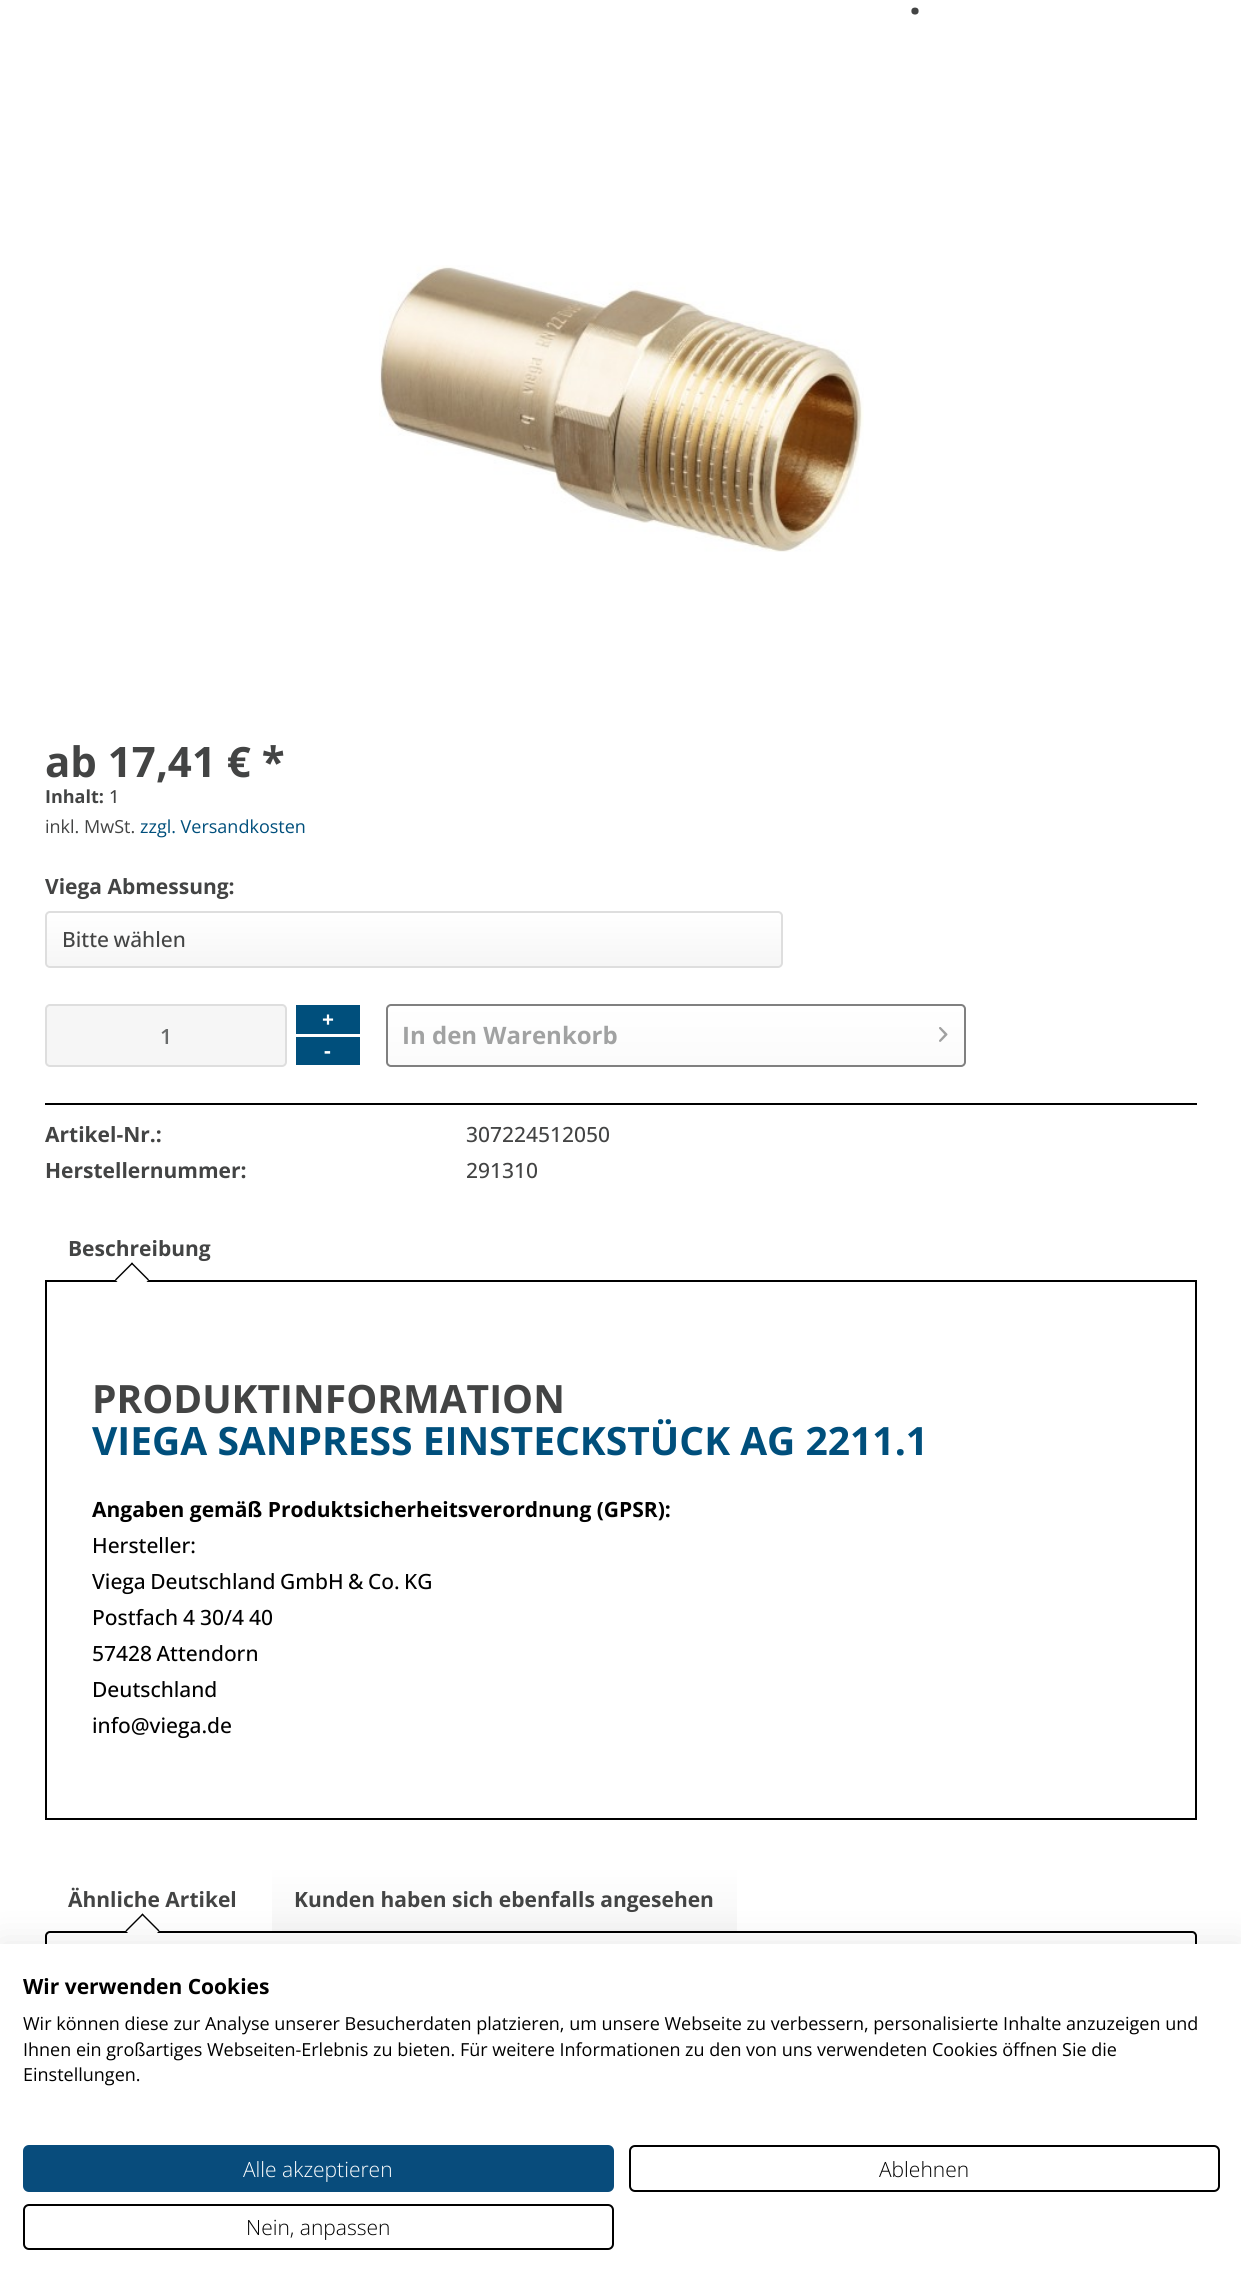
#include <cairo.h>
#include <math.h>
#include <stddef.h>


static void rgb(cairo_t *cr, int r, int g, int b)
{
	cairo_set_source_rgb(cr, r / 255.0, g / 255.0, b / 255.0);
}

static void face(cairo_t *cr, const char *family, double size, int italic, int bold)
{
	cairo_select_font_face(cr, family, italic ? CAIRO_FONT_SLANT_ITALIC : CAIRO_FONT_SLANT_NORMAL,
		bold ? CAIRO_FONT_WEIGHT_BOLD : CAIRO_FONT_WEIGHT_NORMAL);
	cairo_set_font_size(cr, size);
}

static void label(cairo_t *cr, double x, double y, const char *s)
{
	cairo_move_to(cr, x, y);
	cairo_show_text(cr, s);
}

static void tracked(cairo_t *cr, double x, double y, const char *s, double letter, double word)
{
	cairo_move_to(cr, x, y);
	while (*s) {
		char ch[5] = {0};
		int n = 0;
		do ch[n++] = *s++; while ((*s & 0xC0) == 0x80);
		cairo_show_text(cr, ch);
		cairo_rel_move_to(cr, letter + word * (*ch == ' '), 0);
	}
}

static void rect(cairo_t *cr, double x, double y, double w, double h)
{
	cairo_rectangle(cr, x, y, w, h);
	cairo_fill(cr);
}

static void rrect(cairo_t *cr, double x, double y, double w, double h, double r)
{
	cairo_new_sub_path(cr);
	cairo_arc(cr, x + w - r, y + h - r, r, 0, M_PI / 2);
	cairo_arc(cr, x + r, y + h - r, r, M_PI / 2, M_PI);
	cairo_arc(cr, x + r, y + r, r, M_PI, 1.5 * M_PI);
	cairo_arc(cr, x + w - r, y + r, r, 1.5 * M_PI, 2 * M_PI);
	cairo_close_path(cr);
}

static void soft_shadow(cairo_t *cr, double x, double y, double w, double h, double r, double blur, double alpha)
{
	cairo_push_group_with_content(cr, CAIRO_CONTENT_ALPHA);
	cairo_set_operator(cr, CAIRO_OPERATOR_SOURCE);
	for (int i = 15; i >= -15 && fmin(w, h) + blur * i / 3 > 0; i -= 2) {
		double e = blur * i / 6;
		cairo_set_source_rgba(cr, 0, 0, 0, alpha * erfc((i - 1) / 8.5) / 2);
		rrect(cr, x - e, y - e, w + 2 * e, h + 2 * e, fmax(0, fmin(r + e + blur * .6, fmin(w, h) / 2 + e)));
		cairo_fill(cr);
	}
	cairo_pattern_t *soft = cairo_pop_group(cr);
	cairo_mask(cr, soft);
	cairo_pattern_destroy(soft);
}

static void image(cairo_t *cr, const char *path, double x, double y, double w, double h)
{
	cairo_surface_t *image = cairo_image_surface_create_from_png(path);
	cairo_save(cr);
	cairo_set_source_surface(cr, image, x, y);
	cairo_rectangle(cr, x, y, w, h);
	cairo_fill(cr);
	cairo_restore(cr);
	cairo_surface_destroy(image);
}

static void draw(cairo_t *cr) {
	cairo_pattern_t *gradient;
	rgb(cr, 255, 255, 255);
	cairo_paint(cr);
	face(cr, "Open Sans", 42, 0, 1);
	rgb(cr, 67, 68, 68);
	label(cr, 909, 14, ".");
	image(cr, "image0.png", 379, 265, 485, 287);
	label(cr, 45, 777, "ab 17,41 € *");
	face(cr, "Open Sans", 18, 0, 1);
	label(cr, 45, 803, "Inhalt:");
	face(cr, "Open Sans Medium", 18, 0, 0);
	label(cr, 109, 803, "1");
	face(cr, "Open Sans", 18, 0, 0);
	label(cr, 45, 833, "inkl. MwSt.");
	rgb(cr, 0, 79, 124);
	label(cr, 140, 833, "zzgl. Versandkosten");
	face(cr, "Open Sans", 21, 0, 1);
	rgb(cr, 67, 68, 68);
	label(cr, 45, 894, "Viega Abmessung:");
	gradient = cairo_pattern_create_linear(414, 912, 414, 966);
	cairo_pattern_add_color_stop_rgba(gradient, 0, 1, 1, 1, 1);
	cairo_pattern_add_color_stop_rgba(gradient, 1, 0.965, 0.965, 0.965, 1);
	cairo_set_source(cr, gradient);
	cairo_pattern_destroy(gradient);
	rrect(cr, 47, 912, 735, 54, 3);
	cairo_fill(cr);
	rrect(cr, 46, 912, 736, 55, 4);
	rgb(cr, 222, 222, 222);
	cairo_stroke(cr);
	face(cr, "Open Sans Medium", 21, 0, 0);
	rgb(cr, 67, 68, 68);
	tracked(cr, 62, 947, "Bitte wählen", 0, -1);
	rgb(cr, 0, 79, 124);
	rect(cr, 296, 1005, 64, 29);
	face(cr, "Open Sans", 21, 0, 1);
	rgb(cr, 255, 255, 255);
	label(cr, 322, 1027, "+");
	rgb(cr, 246, 246, 246);
	rrect(cr, 46, 1005, 240, 61, 4);
	cairo_fill_preserve(cr);
	rgb(cr, 222, 222, 222);
	cairo_stroke(cr);
	face(cr, "Open Sans SemiBold", 21, 0, 0);
	rgb(cr, 105, 107, 107);
	label(cr, 160, 1044, "1");
	rgb(cr, 0, 79, 124);
	rect(cr, 296, 1037, 64, 28);
	face(cr, "Open Sans", 21, 0, 1);
	rgb(cr, 255, 255, 255);
	label(cr, 324, 1058, "-");
	gradient = cairo_pattern_create_linear(676, 1005, 676, 1065);
	cairo_pattern_add_color_stop_rgba(gradient, 0, 1, 1, 1, 1);
	cairo_pattern_add_color_stop_rgba(gradient, 1, 0.984, 0.984, 0.984, 1);
	cairo_set_source(cr, gradient);
	cairo_pattern_destroy(gradient);
	rrect(cr, 387, 1005, 578, 60, 3);
	cairo_fill(cr);
	rrect(cr, 387, 1005, 578, 61, 4);
	rgb(cr, 128, 128, 128);
	cairo_stroke(cr);
	face(cr, "Open Sans", 24, 0, 1);
	rgb(cr, 161, 162, 162);
	label(cr, 402, 1044, "In den Warenkorb");
	image(cr, "image1.png", 939, 1027, 9, 15);
	rgb(cr, 0, 0, 0);
	rect(cr, 45, 1103, 1152, 2);
	face(cr, "Open Sans", 21, 0, 1);
	rgb(cr, 67, 68, 68);
	label(cr, 45, 1142, "Artikel-Nr.:");
	face(cr, "Open Sans Medium", 21, 0, 0);
	label(cr, 466, 1142, "307224512050");
	face(cr, "Open Sans", 21, 0, 1);
	label(cr, 45, 1178, "Herstellernummer:");
	face(cr, "Open Sans Medium", 21, 0, 0);
	label(cr, 466, 1178, "291310");
	face(cr, "Open Sans", 21, 0, 1);
	label(cr, 68, 1256, "Beschreibung");
	cairo_rectangle(cr, 46, 1281, 1150, 538);
	rgb(cr, 0, 0, 0);
	cairo_stroke(cr);
	rgb(cr, 255, 255, 255);
	cairo_new_path(cr);
	cairo_move_to(cr, 132, 1262.5);
	cairo_line_to(cr, 149, 1279.5);
	cairo_line_to(cr, 132, 1296.5);
	cairo_line_to(cr, 115, 1279.5);
	cairo_close_path(cr);
	cairo_fill(cr);
	rgb(cr, 0, 0, 0);
	cairo_new_path(cr);
	cairo_move_to(cr, 132, 1262.5);
	cairo_line_to(cr, 149, 1279.5);
	cairo_line_to(cr, 148, 1280.5);
	cairo_line_to(cr, 131, 1263.5);
	cairo_close_path(cr);
	cairo_fill(cr);
	cairo_new_path(cr);
	cairo_move_to(cr, 132, 1262.5);
	cairo_line_to(cr, 133, 1263.5);
	cairo_line_to(cr, 116, 1280.5);
	cairo_line_to(cr, 115, 1279.5);
	cairo_close_path(cr);
	cairo_fill(cr);
	face(cr, "Open Sans", 39, 0, 1);
	rgb(cr, 67, 68, 68);
	label(cr, 92, 1413, "PRODUKTINFORMATION");
	rgb(cr, 0, 79, 124);
	label(cr, 92, 1455, "VIEGA SANPRESS EINSTECKSTÜCK AG 2211.1");
	face(cr, "Open Sans", 21, 0, 1);
	rgb(cr, 0, 0, 0);
	label(cr, 92, 1517, "Angaben gemäß Produktsicherheitsverordnung (GPSR):");
	face(cr, "Open Sans Medium", 21, 0, 0);
	label(cr, 92, 1553, "Hersteller:");
	tracked(cr, 92, 1589, "Viega Deutschland GmbH & Co. KG", 0, -1);
	tracked(cr, 92, 1625, "Postfach 4 30/4 40", 0, -0.5);
	tracked(cr, 92, 1661, "57428 Attendorn", 0, -1);
	label(cr, 92, 1697, "Deutschland");
	label(cr, 92, 1733, "info@viega.de");
	face(cr, "Open Sans", 21, 0, 1);
	rgb(cr, 67, 68, 68);
	label(cr, 68, 1907, "Ähnliche Artikel");
	gradient = cairo_pattern_create_linear(504, 1866, 504, 1932);
	cairo_pattern_add_color_stop_rgba(gradient, 0, 1, 1, 1, 1);
	cairo_pattern_add_color_stop_rgba(gradient, 1, 0.965, 0.965, 0.965, 1);
	cairo_set_source(cr, gradient);
	cairo_pattern_destroy(gradient);
	cairo_new_path(cr);
	cairo_move_to(cr, 277, 1866);
	cairo_line_to(cr, 732, 1866);
	cairo_curve_to(cr, 735, 1866, 737, 1868, 737, 1871);
	cairo_line_to(cr, 737, 1932);
	cairo_line_to(cr, 272, 1932);
	cairo_line_to(cr, 272, 1871);
	cairo_curve_to(cr, 272, 1868, 274, 1866, 277, 1866);
	cairo_close_path(cr);
	cairo_fill(cr);
	rrect(cr, 46, 1932, 1150, 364, 4);
	rgb(cr, 0, 0, 0);
	cairo_stroke(cr);
	rgb(cr, 255, 255, 255);
	cairo_new_path(cr);
	cairo_move_to(cr, 142.5, 1913.5);
	cairo_line_to(cr, 159.5, 1930.5);
	cairo_line_to(cr, 142.5, 1947.5);
	cairo_line_to(cr, 125.5, 1930.5);
	cairo_close_path(cr);
	cairo_fill(cr);
	rgb(cr, 0, 0, 0);
	cairo_new_path(cr);
	cairo_move_to(cr, 142.5, 1913.5);
	cairo_line_to(cr, 159.5, 1930.5);
	cairo_line_to(cr, 158.5, 1931.5);
	cairo_line_to(cr, 141.5, 1914.5);
	cairo_close_path(cr);
	cairo_fill(cr);
	cairo_new_path(cr);
	cairo_move_to(cr, 142.5, 1913.5);
	cairo_line_to(cr, 143.5, 1914.5);
	cairo_line_to(cr, 126.5, 1931.5);
	cairo_line_to(cr, 125.5, 1930.5);
	cairo_close_path(cr);
	cairo_fill(cr);
	rgb(cr, 67, 68, 68);
	label(cr, 294, 1907, "Kunden haben sich ebenfalls angesehen");
	rgb(cr, 0, 0, 0);
	soft_shadow(cr, 0, 1944, 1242, 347, 0, 18, 0.1);
	rgb(cr, 255, 255, 255);
	rect(cr, 0, 1944, 1241, 346);
	rgb(cr, 0, 0, 0);
	label(cr, 23, 1994, "Wir verwenden Cookies");
	face(cr, "Open Sans", 18, 0, 0);
	label(cr, 23, 2030, "Wir können diese zur Analyse unserer Besucherdaten platzieren, um unsere Webseite zu verbessern, personalisierte Inhalte anzuzeigen und");
	label(cr, 23, 2056, "Ihnen ein großartiges Webseiten-Erlebnis zu bieten. Für weitere Informationen zu den von uns verwendeten Cookies öffnen Sie die");
	label(cr, 23, 2081, "Einstellungen.");
	rgb(cr, 8, 76, 124);
	rrect(cr, 24, 2146, 589, 45, 5);
	cairo_fill_preserve(cr);
	cairo_stroke(cr);
	face(cr, "Open Sans Light", 21, 0, 0);
	rgb(cr, 255, 255, 255);
	label(cr, 243, 2177, "Alle akzeptieren");
	rrect(cr, 630, 2146, 589, 45, 5);
	rgb(cr, 0, 0, 0);
	cairo_stroke(cr);
	label(cr, 879, 2177, "Ablehnen");
	rrect(cr, 24, 2205, 589, 44, 5);
	cairo_stroke(cr);
	label(cr, 246, 2235, "Nein, anpassen");
}

int main(void) {
	cairo_surface_t *surface = cairo_image_surface_create(CAIRO_FORMAT_RGB24, 1241, 2290);
	cairo_t *cr = cairo_create(surface);
	cairo_font_options_t *options = cairo_font_options_create();
	cairo_font_options_set_hint_metrics(options, CAIRO_HINT_METRICS_OFF);
	cairo_font_options_set_hint_style(options, CAIRO_HINT_STYLE_NONE);
	cairo_set_font_options(cr, options);
	cairo_set_miter_limit(cr, 4);
	draw(cr);
	cairo_surface_write_to_png(surface, "render.png");
	cairo_font_options_destroy(options);
	cairo_destroy(cr);
	cairo_surface_destroy(surface);
	return 0;
}
